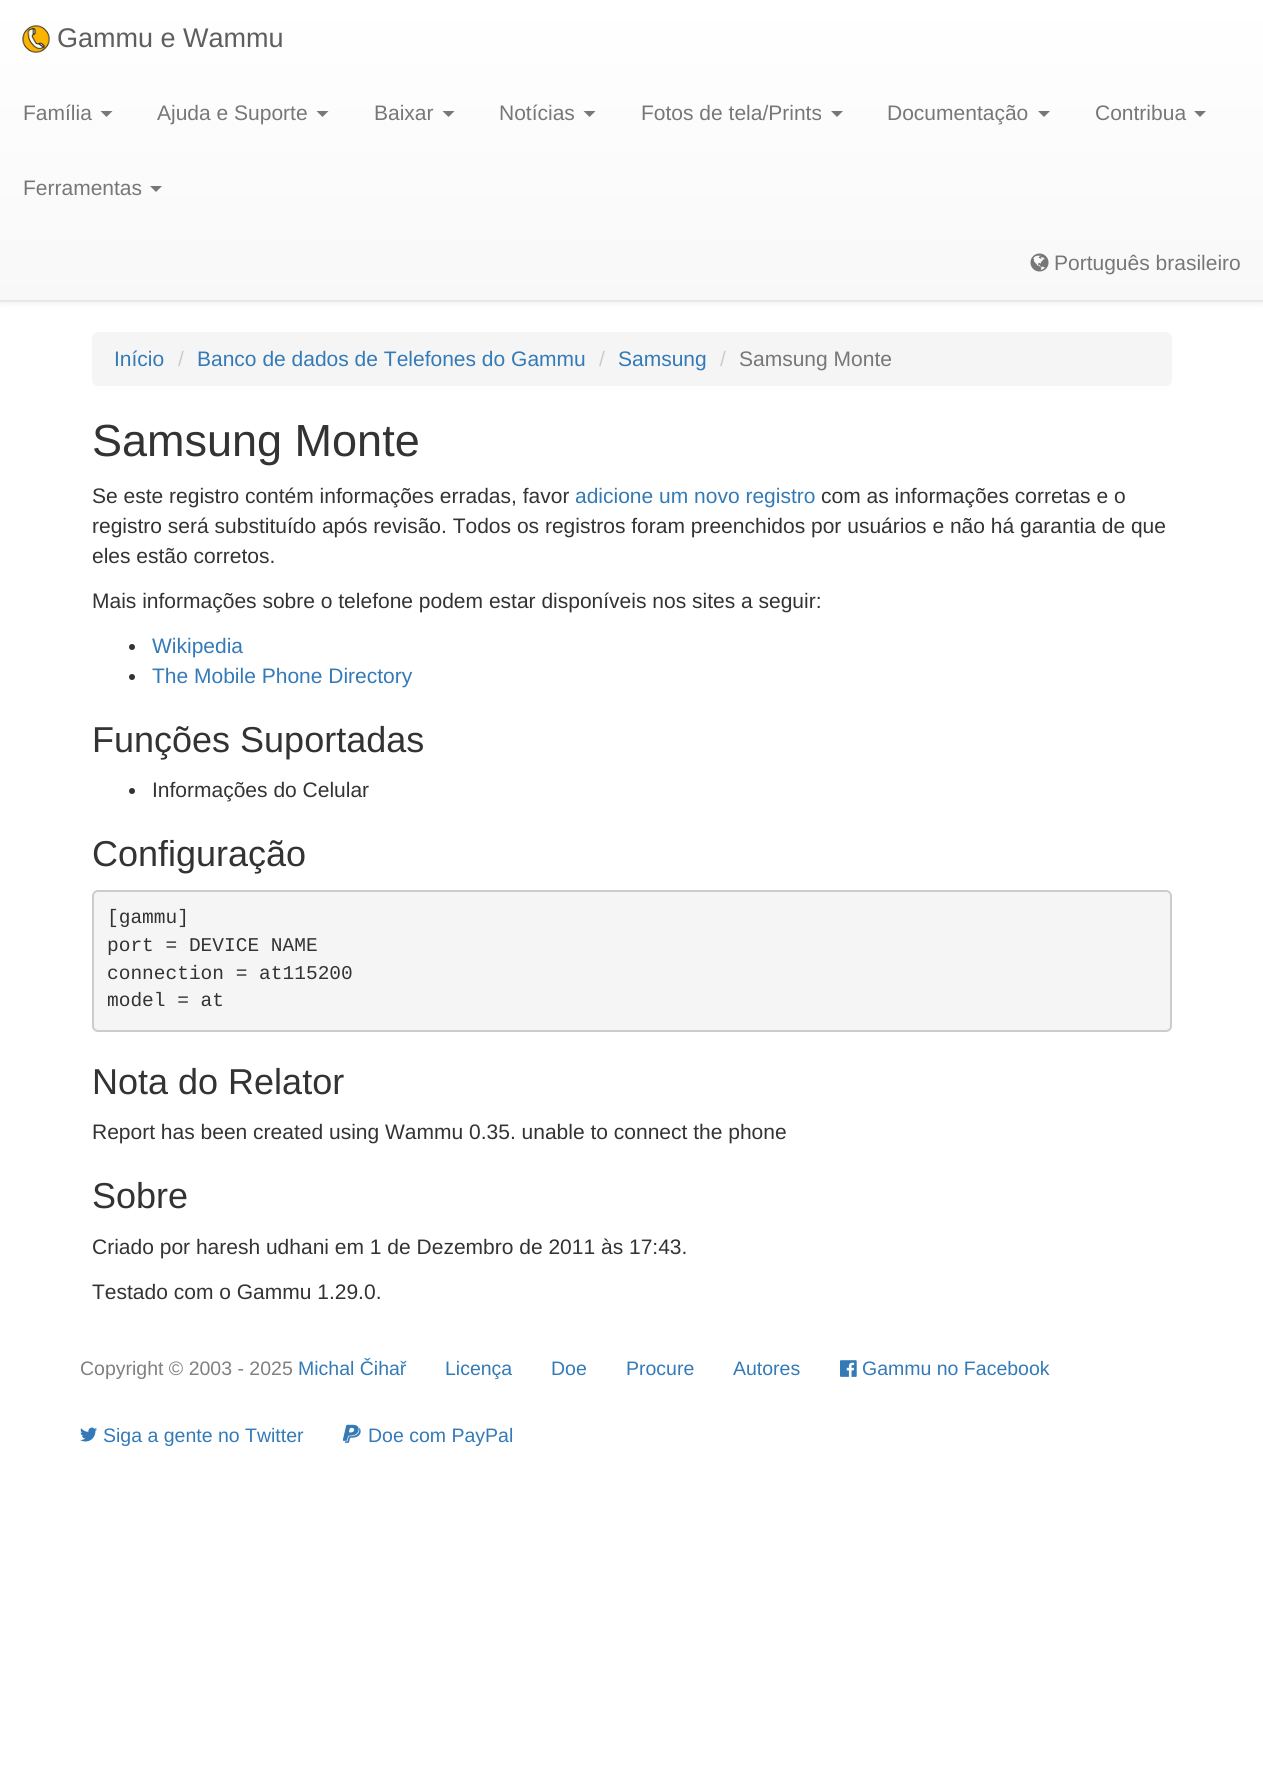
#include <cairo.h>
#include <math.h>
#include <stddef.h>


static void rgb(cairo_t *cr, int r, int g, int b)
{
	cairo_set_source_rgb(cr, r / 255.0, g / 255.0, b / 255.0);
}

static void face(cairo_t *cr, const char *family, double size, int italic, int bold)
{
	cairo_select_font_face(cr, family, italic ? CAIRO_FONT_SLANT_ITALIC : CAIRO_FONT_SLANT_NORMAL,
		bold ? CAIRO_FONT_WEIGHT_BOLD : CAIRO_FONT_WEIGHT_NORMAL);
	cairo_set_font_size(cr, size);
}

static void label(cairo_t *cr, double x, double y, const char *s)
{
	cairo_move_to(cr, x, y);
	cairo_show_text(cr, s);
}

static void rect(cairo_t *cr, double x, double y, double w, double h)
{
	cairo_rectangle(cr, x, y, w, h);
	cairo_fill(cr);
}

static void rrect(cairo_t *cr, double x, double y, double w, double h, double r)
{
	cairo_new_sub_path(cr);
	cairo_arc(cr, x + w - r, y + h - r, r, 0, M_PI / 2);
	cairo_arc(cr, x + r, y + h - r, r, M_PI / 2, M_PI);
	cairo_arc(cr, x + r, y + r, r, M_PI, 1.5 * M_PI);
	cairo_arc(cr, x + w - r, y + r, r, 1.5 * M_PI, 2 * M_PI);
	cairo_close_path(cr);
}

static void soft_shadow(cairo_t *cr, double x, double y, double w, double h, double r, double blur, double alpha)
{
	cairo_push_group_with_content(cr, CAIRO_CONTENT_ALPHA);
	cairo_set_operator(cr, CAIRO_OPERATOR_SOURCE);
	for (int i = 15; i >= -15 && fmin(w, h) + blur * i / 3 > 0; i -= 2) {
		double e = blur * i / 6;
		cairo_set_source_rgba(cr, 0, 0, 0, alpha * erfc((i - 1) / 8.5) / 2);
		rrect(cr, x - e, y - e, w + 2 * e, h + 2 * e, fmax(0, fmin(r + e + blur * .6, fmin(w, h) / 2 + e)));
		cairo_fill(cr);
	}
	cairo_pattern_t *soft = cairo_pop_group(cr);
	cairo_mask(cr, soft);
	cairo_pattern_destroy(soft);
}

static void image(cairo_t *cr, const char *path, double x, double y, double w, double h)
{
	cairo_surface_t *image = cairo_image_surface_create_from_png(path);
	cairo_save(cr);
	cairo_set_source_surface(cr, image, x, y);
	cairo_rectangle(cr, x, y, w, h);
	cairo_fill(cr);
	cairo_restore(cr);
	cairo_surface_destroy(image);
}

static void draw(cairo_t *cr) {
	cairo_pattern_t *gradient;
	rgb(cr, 255, 255, 255);
	cairo_paint(cr);
	rgb(cr, 0, 0, 0);
	soft_shadow(cr, 0, 2, 1263, 301, 0, 4, 0.07);
	gradient = cairo_pattern_create_linear(632, 0, 632, 300);
	cairo_pattern_add_color_stop_rgba(gradient, 0, 1, 1, 1, 1);
	cairo_pattern_add_color_stop_rgba(gradient, 1, 0.973, 0.973, 0.973, 1);
	cairo_set_source(cr, gradient);
	cairo_pattern_destroy(gradient);
	rect(cr, 0, 0, 1263, 300);
	rgb(cr, 231, 231, 231);
	rect(cr, 0, 300, 1263, 2);
	image(cr, "image0.png", 22, 25, 28, 28);
	face(cr, "Liberation Sans", 27, 0, 0);
	rgb(cr, 94, 94, 94);
	label(cr, 57, 47, "Gammu e Wammu");
	face(cr, "Liberation Sans", 21, 0, 0);
	rgb(cr, 119, 119, 119);
	label(cr, 23, 120, "Família");
	cairo_new_path(cr);
	cairo_move_to(cr, 100.5, 111);
	cairo_line_to(cr, 112.5, 111);
	cairo_line_to(cr, 106.5, 117);
	cairo_close_path(cr);
	cairo_fill(cr);
	label(cr, 157, 120, "Ajuda e Suporte");
	cairo_new_path(cr);
	cairo_move_to(cr, 316.5, 111);
	cairo_line_to(cr, 328.5, 111);
	cairo_line_to(cr, 322.5, 117);
	cairo_close_path(cr);
	cairo_fill(cr);
	label(cr, 374, 120, "Baixar");
	cairo_new_path(cr);
	cairo_move_to(cr, 442.5, 111);
	cairo_line_to(cr, 454.5, 111);
	cairo_line_to(cr, 448.5, 117);
	cairo_close_path(cr);
	cairo_fill(cr);
	label(cr, 499, 120, "Notícias");
	cairo_new_path(cr);
	cairo_move_to(cr, 583.5, 111);
	cairo_line_to(cr, 595.5, 111);
	cairo_line_to(cr, 589.5, 117);
	cairo_close_path(cr);
	cairo_fill(cr);
	label(cr, 641, 120, "Fotos de tela/Prints");
	cairo_new_path(cr);
	cairo_move_to(cr, 831, 111);
	cairo_line_to(cr, 843, 111);
	cairo_line_to(cr, 837, 117);
	cairo_close_path(cr);
	cairo_fill(cr);
	label(cr, 887, 120, "Documentação");
	cairo_new_path(cr);
	cairo_move_to(cr, 1038, 111);
	cairo_line_to(cr, 1050, 111);
	cairo_line_to(cr, 1044, 117);
	cairo_close_path(cr);
	cairo_fill(cr);
	label(cr, 1095, 120, "Contribua");
	cairo_new_path(cr);
	cairo_move_to(cr, 1194, 111);
	cairo_line_to(cr, 1206, 111);
	cairo_line_to(cr, 1200, 117);
	cairo_close_path(cr);
	cairo_fill(cr);
	label(cr, 23, 195, "Ferramentas");
	cairo_new_path(cr);
	cairo_move_to(cr, 150, 186);
	cairo_line_to(cr, 162, 186);
	cairo_line_to(cr, 156, 192);
	cairo_close_path(cr);
	cairo_fill(cr);
	image(cr, "image1.png", 1030, 253, 19, 19);
	label(cr, 1054, 270, "Português brasileiro");
	rgb(cr, 245, 245, 245);
	rrect(cr, 92, 332, 1080, 54, 6);
	cairo_fill(cr);
	rgb(cr, 51, 122, 183);
	label(cr, 114, 366, "Início");
	rgb(cr, 204, 204, 204);
	label(cr, 178, 366, "/");
	rgb(cr, 51, 122, 183);
	label(cr, 197, 366, "Banco de dados de Telefones do Gammu");
	rgb(cr, 204, 204, 204);
	label(cr, 599, 366, "/");
	rgb(cr, 51, 122, 183);
	label(cr, 618, 366, "Samsung");
	rgb(cr, 204, 204, 204);
	label(cr, 720, 366, "/");
	rgb(cr, 119, 119, 119);
	label(cr, 739, 366, "Samsung Monte");
	face(cr, "Liberation Sans", 45, 0, 0);
	rgb(cr, 51, 51, 51);
	label(cr, 92, 456, "Samsung Monte");
	face(cr, "Liberation Sans", 21, 0, 0);
	label(cr, 92, 503, "Se este registro contém informações erradas, favor");
	rgb(cr, 51, 122, 183);
	label(cr, 575, 503, "adicione um novo registro");
	rgb(cr, 51, 51, 51);
	label(cr, 821, 503, "com as informações corretas e o");
	label(cr, 92, 533, "registro será substituído após revisão. Todos os registros foram preenchidos por usuários e não há garantia de que");
	label(cr, 92, 563, "eles estão corretos.");
	label(cr, 92, 608, "Mais informações sobre o telefone podem estar disponíveis nos sites a seguir:");
	cairo_new_path(cr);
	cairo_arc(cr, 132, 647, 3, 0, 2 * M_PI);
	cairo_fill(cr);
	rgb(cr, 51, 122, 183);
	label(cr, 152, 653, "Wikipedia");
	rgb(cr, 51, 51, 51);
	cairo_new_path(cr);
	cairo_arc(cr, 132, 677, 3, 0, 2 * M_PI);
	cairo_fill(cr);
	rgb(cr, 51, 122, 183);
	label(cr, 152, 683, "The Mobile Phone Directory");
	face(cr, "Liberation Sans", 36, 0, 0);
	rgb(cr, 51, 51, 51);
	label(cr, 92, 752, "Funções Suportadas");
	cairo_new_path(cr);
	cairo_arc(cr, 132, 791, 3, 0, 2 * M_PI);
	cairo_fill(cr);
	face(cr, "Liberation Sans", 21, 0, 0);
	label(cr, 152, 797, "Informações do Celular");
	face(cr, "Liberation Sans", 36, 0, 0);
	label(cr, 92, 866, "Configuração");
	rgb(cr, 245, 245, 245);
	rrect(cr, 93, 891, 1078, 140, 5);
	cairo_fill_preserve(cr);
	rgb(cr, 204, 204, 204);
	cairo_stroke(cr);
	face(cr, "Liberation Mono", 19.5, 0, 0);
	rgb(cr, 51, 51, 51);
	label(cr, 107, 923, "[gammu]");
	label(cr, 107, 951, "port = DEVICE NAME");
	label(cr, 107, 979, "connection = at115200");
	label(cr, 107, 1006, "model = at");
	face(cr, "Liberation Sans", 36, 0, 0);
	label(cr, 92, 1094, "Nota do Relator");
	face(cr, "Liberation Sans", 21, 0, 0);
	label(cr, 92, 1139, "Report has been created using Wammu 0.35. unable to connect the phone");
	face(cr, "Liberation Sans", 36, 0, 0);
	label(cr, 92, 1208, "Sobre");
	face(cr, "Liberation Sans", 21, 0, 0);
	label(cr, 92, 1254, "Criado por haresh udhani em 1 de Dezembro de 2011 às 17:43.");
	label(cr, 92, 1299, "Testado com o Gammu 1.29.0.");
	face(cr, "Liberation Sans", 19.5, 0, 0);
	rgb(cr, 128, 128, 128);
	label(cr, 80, 1375, "Copyright © 2003 - 2025");
	rgb(cr, 51, 122, 183);
	label(cr, 298, 1375, "Michal Čihař");
	label(cr, 445, 1375, "Licença");
	label(cr, 551, 1375, "Doe");
	label(cr, 626, 1375, "Procure");
	label(cr, 733, 1375, "Autores");
	image(cr, "image2.png", 840, 1360, 17, 17);
	label(cr, 862, 1375, "Gammu no Facebook");
	image(cr, "image3.png", 80, 1427, 17, 15);
	label(cr, 103, 1442, "Siga a gente no Twitter");
	image(cr, "image4.png", 342, 1424, 19, 19);
	label(cr, 368, 1442, "Doe com PayPal");
}

int main(void) {
	cairo_surface_t *surface = cairo_image_surface_create(CAIRO_FORMAT_RGB24, 1263, 1770);
	cairo_t *cr = cairo_create(surface);
	cairo_font_options_t *options = cairo_font_options_create();
	cairo_font_options_set_hint_metrics(options, CAIRO_HINT_METRICS_OFF);
	cairo_font_options_set_hint_style(options, CAIRO_HINT_STYLE_NONE);
	cairo_set_font_options(cr, options);
	cairo_set_miter_limit(cr, 4);
	draw(cr);
	cairo_surface_write_to_png(surface, "render.png");
	cairo_font_options_destroy(options);
	cairo_destroy(cr);
	cairo_surface_destroy(surface);
	return 0;
}
